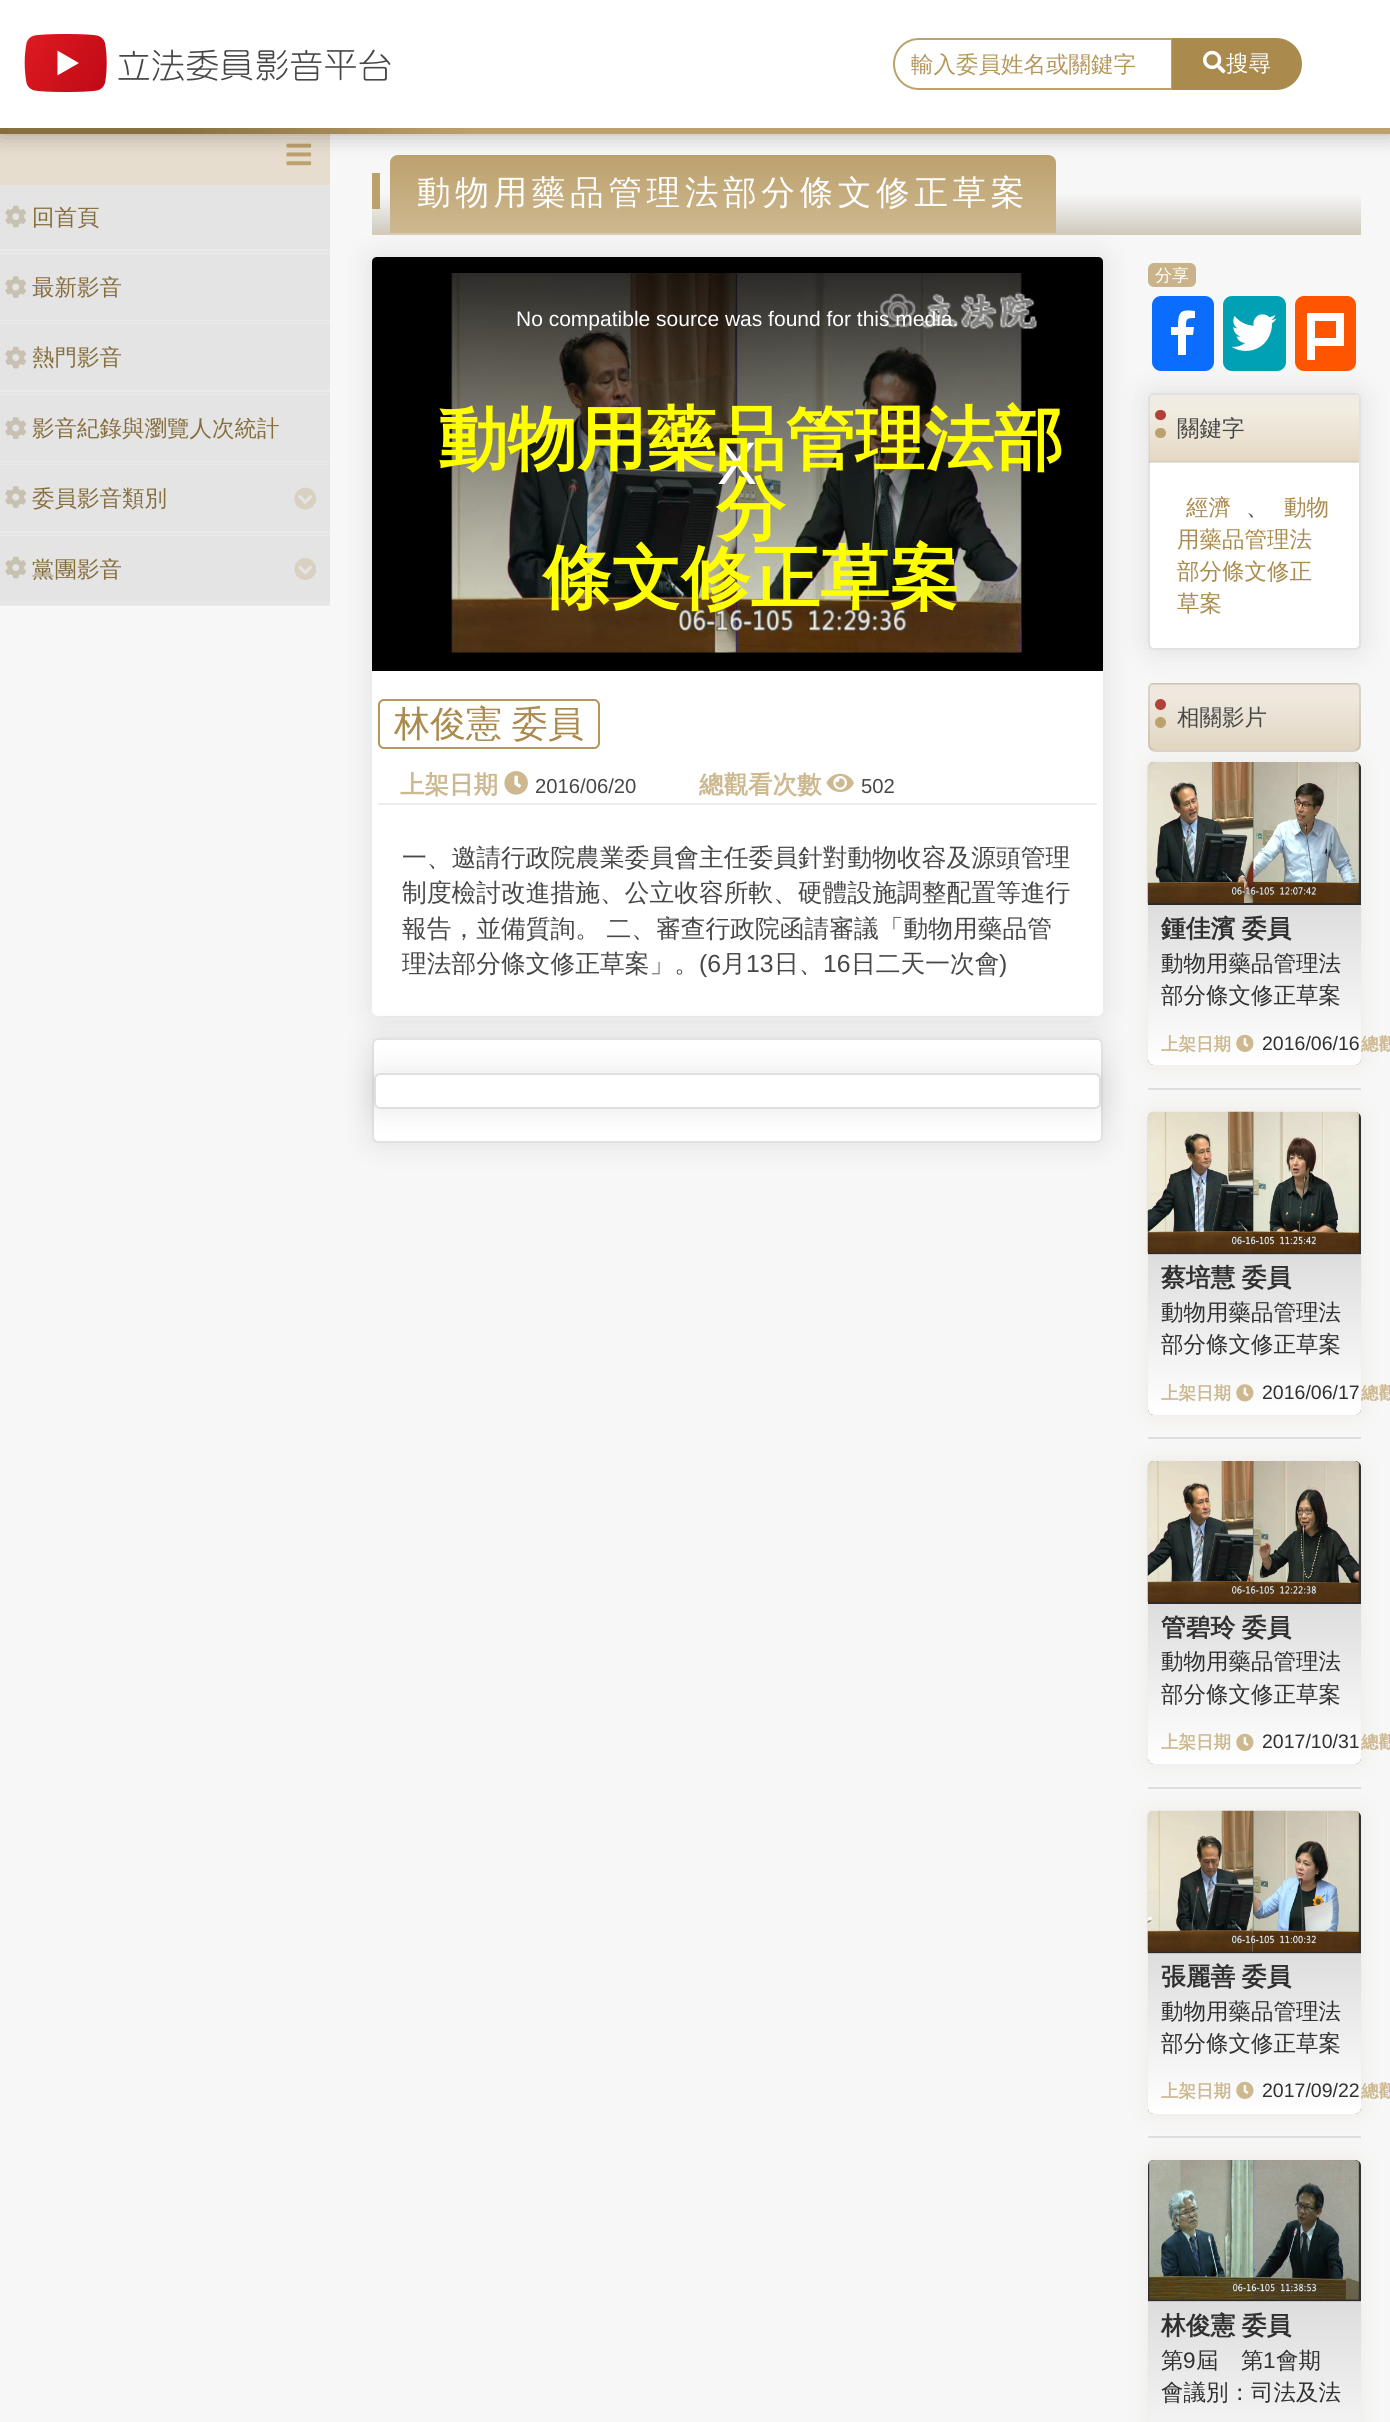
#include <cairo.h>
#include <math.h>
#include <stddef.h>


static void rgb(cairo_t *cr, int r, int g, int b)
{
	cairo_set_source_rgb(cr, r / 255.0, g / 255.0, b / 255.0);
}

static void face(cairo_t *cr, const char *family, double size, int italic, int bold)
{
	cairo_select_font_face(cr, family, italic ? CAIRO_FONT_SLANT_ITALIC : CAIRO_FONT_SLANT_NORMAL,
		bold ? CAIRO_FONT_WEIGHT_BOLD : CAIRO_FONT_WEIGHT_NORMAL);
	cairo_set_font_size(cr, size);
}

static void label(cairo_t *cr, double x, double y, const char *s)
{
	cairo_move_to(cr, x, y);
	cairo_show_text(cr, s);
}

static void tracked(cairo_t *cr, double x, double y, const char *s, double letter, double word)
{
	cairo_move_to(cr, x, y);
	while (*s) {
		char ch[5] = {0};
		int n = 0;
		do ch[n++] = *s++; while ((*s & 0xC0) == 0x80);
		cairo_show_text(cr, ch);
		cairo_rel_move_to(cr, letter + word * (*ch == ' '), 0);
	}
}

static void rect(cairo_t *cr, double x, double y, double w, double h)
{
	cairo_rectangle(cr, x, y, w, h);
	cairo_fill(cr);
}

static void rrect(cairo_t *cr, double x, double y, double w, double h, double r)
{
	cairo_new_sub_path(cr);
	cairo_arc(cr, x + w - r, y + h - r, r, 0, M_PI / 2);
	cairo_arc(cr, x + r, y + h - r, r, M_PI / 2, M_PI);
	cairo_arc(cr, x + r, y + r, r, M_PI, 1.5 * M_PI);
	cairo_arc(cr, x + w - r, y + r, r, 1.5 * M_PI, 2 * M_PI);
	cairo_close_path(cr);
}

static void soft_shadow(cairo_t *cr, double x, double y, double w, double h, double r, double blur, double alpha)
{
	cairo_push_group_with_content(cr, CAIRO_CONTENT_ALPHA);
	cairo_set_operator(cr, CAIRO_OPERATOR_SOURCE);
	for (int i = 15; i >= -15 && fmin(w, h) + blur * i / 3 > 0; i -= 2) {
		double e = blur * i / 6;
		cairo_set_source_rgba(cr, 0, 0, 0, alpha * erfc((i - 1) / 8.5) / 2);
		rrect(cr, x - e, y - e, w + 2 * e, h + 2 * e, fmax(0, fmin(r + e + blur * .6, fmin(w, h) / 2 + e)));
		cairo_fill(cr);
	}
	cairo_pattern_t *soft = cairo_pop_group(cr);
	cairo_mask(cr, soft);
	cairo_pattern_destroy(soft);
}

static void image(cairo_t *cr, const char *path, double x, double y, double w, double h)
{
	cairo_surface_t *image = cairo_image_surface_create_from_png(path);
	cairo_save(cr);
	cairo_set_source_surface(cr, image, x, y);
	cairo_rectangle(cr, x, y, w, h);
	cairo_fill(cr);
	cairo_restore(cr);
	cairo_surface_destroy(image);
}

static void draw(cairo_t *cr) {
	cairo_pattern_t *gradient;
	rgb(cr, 247, 247, 247);
	cairo_paint(cr);
	rgb(cr, 230, 221, 206);
	rect(cr, 0, 134, 330, 51);
	image(cr, "image2.png", 286, 143, 26, 23);
	gradient = cairo_pattern_create_linear(866, 154, 866, 233);
	cairo_pattern_add_color_stop_rgba(gradient, 0.5, 0.969, 0.969, 0.969, 1);
	cairo_pattern_add_color_stop_rgba(gradient, 1, 0.816, 0.796, 0.753, 1);
	cairo_set_source(cr, gradient);
	cairo_pattern_destroy(gradient);
	rect(cr, 372, 195, 989, 38);
	gradient = cairo_pattern_create_linear(723, 154, 723, 233);
	cairo_pattern_add_color_stop_rgba(gradient, 0, 0.741, 0.631, 0.427, 1);
	cairo_pattern_add_color_stop_rgba(gradient, 1, 0.804, 0.722, 0.565, 1);
	cairo_set_source(cr, gradient);
	cairo_pattern_destroy(gradient);
	cairo_new_path(cr);
	cairo_move_to(cr, 398, 155);
	cairo_line_to(cr, 1048, 155);
	cairo_curve_to(cr, 1052.5, 155, 1056, 158.5, 1056, 163);
	cairo_line_to(cr, 1056, 233);
	cairo_line_to(cr, 390, 233);
	cairo_line_to(cr, 390, 163);
	cairo_curve_to(cr, 390, 158.5, 393.5, 155, 398, 155);
	cairo_close_path(cr);
	cairo_fill(cr);
	rgb(cr, 0, 0, 0);
	soft_shadow(cr, 0, 0, 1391, 134, 0, 11, 0.3);
	gradient = cairo_pattern_create_linear(0, 67, 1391, 67);
	cairo_pattern_add_color_stop_rgba(gradient, 0.12, 0.529, 0.431, 0.239, 1);
	cairo_pattern_add_color_stop_rgba(gradient, 0.34, 0.741, 0.631, 0.427, 1);
	cairo_set_source(cr, gradient);
	cairo_pattern_destroy(gradient);
	rect(cr, 0, 128, 1390, 6);
	rgb(cr, 255, 255, 255);
	rect(cr, 0, 0, 1390, 128);
	image(cr, "image0.png", 24, 34, 367, 58);
	cairo_new_path(cr);
	cairo_move_to(cr, 919, 39);
	cairo_line_to(cr, 1172, 39);
	cairo_line_to(cr, 1172, 89);
	cairo_line_to(cr, 919, 89);
	cairo_curve_to(cr, 905, 89, 894, 78, 894, 64);
	cairo_curve_to(cr, 894, 50, 905, 39, 919, 39);
	cairo_close_path(cr);
	rgb(cr, 189, 161, 109);
	cairo_stroke(cr);
	face(cr, "WenQuanYi Zen Hei Medium", 22.5, 0, 0);
	rgb(cr, 181, 150, 92);
	label(cr, 911, 72, "輸入委員姓名或關鍵字");
	rgb(cr, 170, 138, 77);
	cairo_new_path(cr);
	cairo_move_to(cr, 1172, 38);
	cairo_line_to(cr, 1276, 38);
	cairo_curve_to(cr, 1290.5, 38, 1302, 49.5, 1302, 64);
	cairo_curve_to(cr, 1302, 78.5, 1290.5, 90, 1276, 90);
	cairo_line_to(cr, 1172, 90);
	cairo_close_path(cr);
	cairo_fill(cr);
	image(cr, "image1.png", 1203, 50, 23, 24);
	rgb(cr, 255, 255, 255);
	label(cr, 1226, 71, "搜尋");
	rgb(cr, 234, 234, 234);
	rect(cr, 0, 249, 330, 357);
	rgb(cr, 229, 229, 229);
	rect(cr, 0, 251, 330, 2);
	rgb(cr, 228, 228, 228);
	rect(cr, 0, 185, 330, 64);
	image(cr, "image3.png", 5, 205, 22, 23);
	rgb(cr, 135, 110, 61);
	label(cr, 32, 225, "回首頁");
	rgb(cr, 229, 229, 229);
	rect(cr, 0, 321, 330, 2);
	rgb(cr, 228, 228, 228);
	rect(cr, 0, 254, 330, 66);
	image(cr, "image4.png", 5, 276, 21, 22);
	rgb(cr, 135, 110, 61);
	label(cr, 32, 295, "最新影音");
	rgb(cr, 229, 229, 229);
	rect(cr, 0, 392, 330, 2);
	rgb(cr, 228, 228, 228);
	rect(cr, 0, 324, 330, 66);
	image(cr, "image3.png", 5, 346, 22, 23);
	rgb(cr, 135, 110, 61);
	label(cr, 32, 365, "熱門影音");
	rgb(cr, 229, 229, 229);
	rect(cr, 0, 462, 330, 2);
	rgb(cr, 228, 228, 228);
	rect(cr, 0, 395, 330, 66);
	image(cr, "image4.png", 5, 417, 21, 22);
	rgb(cr, 135, 110, 61);
	label(cr, 32, 436, "影音紀錄與瀏覽人次統計");
	rgb(cr, 229, 229, 229);
	rect(cr, 0, 533, 330, 2);
	rgb(cr, 228, 228, 228);
	rect(cr, 0, 465, 330, 66);
	image(cr, "image4.png", 5, 486, 21, 22);
	rgb(cr, 135, 110, 61);
	label(cr, 32, 506, "委員影音類別");
	image(cr, "image5.png", 294, 487, 23, 23);
	rgb(cr, 229, 229, 229);
	rect(cr, 0, 603, 330, 2);
	rgb(cr, 228, 228, 228);
	rect(cr, 0, 536, 330, 66);
	image(cr, "image3.png", 5, 556, 22, 23);
	rgb(cr, 135, 110, 61);
	label(cr, 32, 577, "黨團影音");
	image(cr, "image6.png", 294, 558, 22, 22);
	rgb(cr, 218, 204, 178);
	rect(cr, 372, 233, 989, 2);
	rgb(cr, 189, 161, 109);
	rect(cr, 372, 173, 8, 36);
	face(cr, "WenQuanYi Zen Hei Medium", 33.75, 0, 0);
	rgb(cr, 255, 255, 255);
	tracked(cr, 417, 204, "動物用藥品管理法部分條文修正草案", 4.5, 0);
	rgb(cr, 0, 0, 0);
	soft_shadow(cr, 372, 257, 731, 759, 6, 15, 0.1);
	rgb(cr, 255, 255, 255);
	rrect(cr, 372, 257, 731, 759, 6);
	cairo_fill(cr);
	rgb(cr, 0, 0, 0);
	cairo_new_path(cr);
	cairo_move_to(cr, 377, 257);
	cairo_line_to(cr, 1098, 257);
	cairo_curve_to(cr, 1101, 257, 1103, 259, 1103, 262);
	cairo_line_to(cr, 1103, 671);
	cairo_line_to(cr, 372, 671);
	cairo_line_to(cr, 372, 262);
	cairo_curve_to(cr, 372, 259, 374, 257, 377, 257);
	cairo_close_path(cr);
	cairo_fill(cr);
	image(cr, "image7.png", 451, 273, 571, 380);
	gradient = cairo_pattern_create_linear(737, 273, 737, 653);
	cairo_pattern_add_color_stop_rgba(gradient, 0, 0, 0, 0, 0.8);
	cairo_pattern_add_color_stop_rgba(gradient, 1, 0, 0, 0, 0);
	cairo_set_source(cr, gradient);
	cairo_pattern_destroy(gradient);
	rect(cr, 451, 273, 571, 370);
	image(cr, "image8.png", 880, 292, 157, 37);
	face(cr, "Liberation Sans", 21, 0, 0);
	rgb(cr, 255, 255, 255);
	label(cr, 516, 326, "No compatible source was found for this media.");
	face(cr, "Liberation Sans", 60, 0, 0);
	label(cr, 717, 484, "X");
	face(cr, "WenQuanYi Zen Hei", 69.5, 0, 1);
	rgb(cr, 255, 255, 0);
	label(cr, 438, 463, "動物用藥品管理法部");
	label(cr, 716, 533, "分");
	label(cr, 542, 602, "條文修正草案");
	rgb(cr, 238, 238, 238);
	rect(cr, 378, 803, 719, 2);
	rrect(cr, 379, 700, 220, 48, 5);
	rgb(cr, 181, 150, 92);
	cairo_stroke(cr);
	face(cr, "WenQuanYi Zen Hei Medium", 36, 0, 0);
	rgb(cr, 170, 138, 77);
	tracked(cr, 394, 736, "林俊憲 委員", 0, -1);
	image(cr, "image9.png", 504, 771, 24, 24);
	face(cr, "WenQuanYi Zen Hei", 24.5, 0, 1);
	rgb(cr, 205, 184, 144);
	label(cr, 400, 793, "上架日期");
	face(cr, "Liberation Sans", 20.25, 0, 0);
	rgb(cr, 71, 71, 71);
	label(cr, 535, 793, "2016/06/20");
	image(cr, "image10.png", 826, 773, 28, 19);
	face(cr, "WenQuanYi Zen Hei", 24.5, 0, 1);
	rgb(cr, 205, 184, 144);
	label(cr, 699, 793, "總觀看次數");
	face(cr, "Liberation Sans", 20.25, 0, 0);
	rgb(cr, 71, 71, 71);
	label(cr, 861, 793, "502");
	face(cr, "WenQuanYi Zen Hei Medium", 24.75, 0, 0);
	label(cr, 402, 866, "一、邀請行政院農業委員會主任委員針對動物收容及源頭管理");
	label(cr, 402, 901, "制度檢討改進措施、公立收容所軟、硬體設施調整配置等進行");
	tracked(cr, 402, 937, "報告，並備質詢。 二、審查行政院函請審議「動物用藥品管", 0, -1);
	label(cr, 402, 972, "理法部分條文修正草案」。");
	face(cr, "Liberation Sans", 24.75, 0, 0);
	label(cr, 699, 972, "(6");
	face(cr, "WenQuanYi Zen Hei Medium", 24.75, 0, 0);
	label(cr, 721, 972, "月");
	face(cr, "Liberation Sans", 24.75, 0, 0);
	label(cr, 746, 972, "13");
	face(cr, "WenQuanYi Zen Hei Medium", 24.75, 0, 0);
	label(cr, 774, 972, "日、");
	face(cr, "Liberation Sans", 24.75, 0, 0);
	label(cr, 823, 972, "16");
	face(cr, "WenQuanYi Zen Hei Medium", 24.75, 0, 0);
	label(cr, 851, 972, "日二天一次會");
	face(cr, "Liberation Sans", 24.75, 0, 0);
	label(cr, 999, 972, ")");
	rgb(cr, 0, 0, 0);
	soft_shadow(cr, 372, 1038, 731, 105, 6, 15, 0.1);
	rgb(cr, 255, 255, 255);
	rrect(cr, 372, 1038, 731, 105, 6);
	cairo_fill(cr);
	rrect(cr, 373, 1039, 729, 103, 5);
	cairo_set_source_rgba(cr, 0, 0, 0, 0.12);
	cairo_stroke(cr);
	rgb(cr, 0, 0, 0);
	soft_shadow(cr, 374, 1073, 727, 36, 6, 15, 0.1);
	rgb(cr, 255, 255, 255);
	rrect(cr, 375, 1074, 725, 34, 5);
	cairo_fill_preserve(cr);
	rgb(cr, 223, 223, 223);
	cairo_stroke(cr);
	rgb(cr, 201, 179, 138);
	rrect(cr, 1148, 263, 48, 24, 6);
	cairo_fill(cr);
	face(cr, "WenQuanYi Zen Hei Medium", 17, 0, 0);
	rgb(cr, 255, 255, 255);
	label(cr, 1155, 281, "分享");
	rgb(cr, 11, 109, 255);
	rrect(cr, 1152, 296, 62, 75, 9);
	cairo_fill(cr);
	rgb(cr, 255, 255, 255);
	cairo_new_path(cr);
	cairo_move_to(cr, 1193, 335);
	cairo_line_to(cr, 1186, 335);
	cairo_line_to(cr, 1186, 355);
	cairo_line_to(cr, 1178, 355);
	cairo_line_to(cr, 1178, 335);
	cairo_line_to(cr, 1171, 335);
	cairo_line_to(cr, 1171, 327);
	cairo_line_to(cr, 1178, 327);
	cairo_curve_to(cr, 1178, 312, 1180, 309, 1195, 311);
	cairo_line_to(cr, 1195, 318);
	cairo_curve_to(cr, 1186, 318, 1186, 319, 1186, 327);
	cairo_line_to(cr, 1194, 327);
	cairo_close_path(cr);
	cairo_fill(cr);
	rgb(cr, 0, 161, 180);
	rrect(cr, 1223, 296, 63, 75, 9);
	cairo_fill(cr);
	image(cr, "image11.png", 1231, 314, 46, 37);
	rgb(cr, 255, 85, 0);
	rrect(cr, 1295, 296, 61, 75, 9);
	cairo_fill(cr);
	rgb(cr, 255, 255, 255);
	cairo_new_path(cr);
	cairo_move_to(cr, 1307, 313);
	cairo_line_to(cr, 1307, 360);
	cairo_line_to(cr, 1315, 360);
	cairo_line_to(cr, 1315, 346);
	cairo_line_to(cr, 1344, 346);
	cairo_line_to(cr, 1344, 313);
	cairo_close_path(cr);
	cairo_move_to(cr, 1336, 338);
	cairo_line_to(cr, 1315, 338);
	cairo_line_to(cr, 1315, 321);
	cairo_line_to(cr, 1336, 321);
	cairo_close_path(cr);
	cairo_fill(cr);
	rgb(cr, 0, 0, 0);
	soft_shadow(cr, 1148, 393, 213, 257, 6, 15, 0.1);
	rgb(cr, 255, 255, 255);
	rrect(cr, 1148, 393, 213, 257, 6);
	cairo_fill(cr);
	rrect(cr, 1149, 394, 211, 255, 5);
	cairo_set_source_rgba(cr, 0, 0, 0, 0.12);
	cairo_stroke(cr);
	gradient = cairo_pattern_create_linear(1254, 395, 1254, 461);
	cairo_pattern_add_color_stop_rgba(gradient, 0.2, 0.898, 0.855, 0.773, 0.5);
	cairo_pattern_add_color_stop_rgba(gradient, 1, 0.867, 0.808, 0.702, 0.8);
	cairo_set_source(cr, gradient);
	cairo_pattern_destroy(gradient);
	cairo_new_path(cr);
	cairo_move_to(cr, 1154, 395);
	cairo_line_to(cr, 1354, 395);
	cairo_curve_to(cr, 1357, 395, 1359, 397, 1359, 400);
	cairo_line_to(cr, 1359, 461);
	cairo_line_to(cr, 1149, 461);
	cairo_line_to(cr, 1149, 400);
	cairo_curve_to(cr, 1149, 397, 1151, 395, 1154, 395);
	cairo_close_path(cr);
	cairo_fill(cr);
	gradient = cairo_pattern_create_linear(1254, 461, 1254, 527);
	cairo_pattern_add_color_stop_rgba(gradient, 0.2, 0.898, 0.855, 0.773, 0.5);
	cairo_pattern_add_color_stop_rgba(gradient, 1, 0.867, 0.808, 0.702, 0.8);
	cairo_set_source(cr, gradient);
	cairo_pattern_destroy(gradient);
	rect(cr, 1149, 461, 210, 1);
	cairo_set_source_rgba(cr, 0, 0, 0, 0.12);
	rect(cr, 1149, 461, 210, 2);
	rgb(cr, 177, 66, 58);
	rrect(cr, 1155, 410, 11, 10, 5);
	cairo_fill(cr);
	rgb(cr, 189, 161, 109);
	rrect(cr, 1155, 428, 11, 10, 5);
	cairo_fill(cr);
	face(cr, "WenQuanYi Zen Hei Medium", 22.5, 0, 0);
	rgb(cr, 71, 71, 71);
	label(cr, 1177, 436, "關鍵字");
	rgb(cr, 170, 138, 77);
	label(cr, 1186, 515, "經濟");
	rgb(cr, 71, 71, 71);
	label(cr, 1246, 515, "、");
	rgb(cr, 170, 138, 77);
	label(cr, 1284, 515, "動物");
	label(cr, 1177, 547, "用藥品管理法");
	label(cr, 1177, 579, "部分條文修正");
	label(cr, 1177, 611, "草案");
	cairo_save(cr);
	cairo_new_path(cr);
	cairo_move_to(cr, 1153, 683);
	cairo_line_to(cr, 1356, 683);
	cairo_curve_to(cr, 1359, 683, 1361, 685, 1361, 688);
	cairo_line_to(cr, 1361, 744);
	cairo_curve_to(cr, 1361, 748.5, 1357.5, 752, 1353, 752);
	cairo_line_to(cr, 1156, 752);
	cairo_curve_to(cr, 1151.5, 752, 1148, 748.5, 1148, 744);
	cairo_line_to(cr, 1148, 688);
	cairo_curve_to(cr, 1148, 685, 1150, 683, 1153, 683);
	cairo_close_path(cr);
	cairo_clip(cr);
	gradient = cairo_pattern_create_linear(1254, 618, 1254, 684);
	cairo_pattern_add_color_stop_rgba(gradient, 0.2, 0.933, 0.91, 0.871, 1);
	cairo_pattern_add_color_stop_rgba(gradient, 1, 0.886, 0.839, 0.757, 1);
	cairo_set_source(cr, gradient);
	cairo_pattern_destroy(gradient);
	rect(cr, 1148, 683, 213, 1);
	gradient = cairo_pattern_create_linear(1254, 684, 1254, 750);
	cairo_pattern_add_color_stop_rgba(gradient, 0.2, 0.933, 0.91, 0.871, 1);
	cairo_pattern_add_color_stop_rgba(gradient, 1, 0.886, 0.839, 0.757, 1);
	cairo_set_source(cr, gradient);
	cairo_pattern_destroy(gradient);
	rect(cr, 1148, 684, 213, 66);
	gradient = cairo_pattern_create_linear(1254, 750, 1254, 816);
	cairo_pattern_add_color_stop_rgba(gradient, 0.2, 0.933, 0.914, 0.871, 1);
	cairo_pattern_add_color_stop_rgba(gradient, 1, 0.886, 0.839, 0.757, 1);
	cairo_set_source(cr, gradient);
	cairo_pattern_destroy(gradient);
	rect(cr, 1148, 750, 213, 2);
	cairo_restore(cr);
	cairo_new_path(cr);
	cairo_move_to(cr, 1153, 684);
	cairo_line_to(cr, 1356, 684);
	cairo_curve_to(cr, 1358, 684, 1360, 686, 1360, 688);
	cairo_line_to(cr, 1360, 744);
	cairo_curve_to(cr, 1360, 748, 1357, 751, 1353, 751);
	cairo_line_to(cr, 1156, 751);
	cairo_curve_to(cr, 1152, 751, 1149, 748, 1149, 744);
	cairo_line_to(cr, 1149, 688);
	cairo_curve_to(cr, 1149, 686, 1151, 684, 1153, 684);
	cairo_close_path(cr);
	cairo_set_source_rgba(cr, 0, 0, 0, 0.09);
	cairo_stroke(cr);
	rgb(cr, 177, 66, 58);
	cairo_arc(cr, 1160.5, 704.5, 5.5, 0, 2 * M_PI);
	cairo_fill(cr);
	rgb(cr, 189, 161, 109);
	cairo_arc(cr, 1160.5, 722.5, 5.5, 0, 2 * M_PI);
	cairo_fill(cr);
	rgb(cr, 71, 71, 71);
	label(cr, 1177, 725, "相關影片");
	rgb(cr, 222, 222, 222);
	rect(cr, 1148, 1088, 213, 2);
	rgb(cr, 135, 110, 61);
	soft_shadow(cr, 1148, 762, 213, 303, 6, 10.5, 0.1);
	rgb(cr, 48, 48, 48);
	rrect(cr, 1148, 762, 213, 303, 6);
	cairo_fill(cr);
	image(cr, "image12.png", 1147, 762, 212, 141);
	rgb(cr, 42, 42, 42);
	rect(cr, 1148, 903, 213, 2);
	gradient = cairo_pattern_create_linear(1254, 905, 1254, 1065);
	cairo_pattern_add_color_stop_rgba(gradient, 0, 0.867, 0.867, 0.867, 1);
	cairo_pattern_add_color_stop_rgba(gradient, 1, 1, 1, 1, 1);
	cairo_set_source(cr, gradient);
	cairo_pattern_destroy(gradient);
	cairo_new_path(cr);
	cairo_move_to(cr, 1148, 905);
	cairo_line_to(cr, 1361, 905);
	cairo_line_to(cr, 1361, 1059);
	cairo_curve_to(cr, 1361, 1062.5, 1358.5, 1065, 1355, 1065);
	cairo_line_to(cr, 1154, 1065);
	cairo_curve_to(cr, 1150.5, 1065, 1148, 1062.5, 1148, 1059);
	cairo_close_path(cr);
	cairo_fill(cr);
	face(cr, "WenQuanYi Zen Hei", 24.75, 0, 1);
	rgb(cr, 48, 48, 48);
	tracked(cr, 1161, 937, "鍾佳濱 委員", 0, -1);
	face(cr, "WenQuanYi Zen Hei Medium", 22.5, 0, 0);
	label(cr, 1161, 971, "動物用藥品管理法");
	label(cr, 1161, 1003, "部分條文修正草案");
	image(cr, "image13.png", 1236, 1034, 18, 18);
	face(cr, "WenQuanYi Zen Hei", 17.5, 0, 1);
	rgb(cr, 205, 184, 144);
	label(cr, 1161, 1050, "上架日期");
	face(cr, "Liberation Sans", 19.5, 0, 0);
	rgb(cr, 48, 48, 48);
	label(cr, 1262, 1050, "2016/06/16");
	face(cr, "WenQuanYi Zen Hei", 17.5, 0, 1);
	rgb(cr, 205, 184, 144);
	label(cr, 1361, 1050, "總觀");
	rgb(cr, 222, 222, 222);
	rect(cr, 1148, 1437, 213, 2);
	rgb(cr, 135, 110, 61);
	soft_shadow(cr, 1148, 1112, 213, 303, 6, 10.5, 0.1);
	rgb(cr, 48, 48, 48);
	rrect(cr, 1148, 1112, 213, 303, 6);
	cairo_fill(cr);
	image(cr, "image14.png", 1147, 1111, 212, 142);
	gradient = cairo_pattern_create_linear(1254, 1254, 1254, 1415);
	cairo_pattern_add_color_stop_rgba(gradient, 0, 0.867, 0.867, 0.867, 1);
	cairo_pattern_add_color_stop_rgba(gradient, 1, 1, 1, 1, 1);
	cairo_set_source(cr, gradient);
	cairo_pattern_destroy(gradient);
	cairo_new_path(cr);
	cairo_move_to(cr, 1148, 1254);
	cairo_line_to(cr, 1361, 1254);
	cairo_line_to(cr, 1361, 1409);
	cairo_curve_to(cr, 1361, 1412.5, 1358.5, 1415, 1355, 1415);
	cairo_line_to(cr, 1154, 1415);
	cairo_curve_to(cr, 1150.5, 1415, 1148, 1412.5, 1148, 1409);
	cairo_close_path(cr);
	cairo_fill(cr);
	cairo_set_source_rgba(cr, 0, 0, 0, 0.12);
	rect(cr, 1148, 1253, 213, 2);
	face(cr, "WenQuanYi Zen Hei", 24.75, 0, 1);
	rgb(cr, 48, 48, 48);
	tracked(cr, 1161, 1286, "蔡培慧 委員", 0, -1);
	face(cr, "WenQuanYi Zen Hei Medium", 22.5, 0, 0);
	label(cr, 1161, 1320, "動物用藥品管理法");
	label(cr, 1161, 1352, "部分條文修正草案");
	image(cr, "image15.png", 1236, 1384, 18, 18);
	face(cr, "WenQuanYi Zen Hei", 17.5, 0, 1);
	rgb(cr, 205, 184, 144);
	label(cr, 1161, 1399, "上架日期");
	face(cr, "Liberation Sans", 19.5, 0, 0);
	rgb(cr, 48, 48, 48);
	label(cr, 1262, 1399, "2016/06/17");
	face(cr, "WenQuanYi Zen Hei", 17.5, 0, 1);
	rgb(cr, 205, 184, 144);
	label(cr, 1361, 1399, "總觀");
	rgb(cr, 222, 222, 222);
	rect(cr, 1148, 1787, 213, 2);
	rgb(cr, 135, 110, 61);
	soft_shadow(cr, 1148, 1461, 213, 303, 6, 10.5, 0.1);
	rgb(cr, 48, 48, 48);
	rrect(cr, 1148, 1461, 213, 303, 6);
	cairo_fill(cr);
	image(cr, "image16.png", 1147, 1461, 212, 141);
	rgb(cr, 42, 42, 42);
	rect(cr, 1148, 1602, 213, 2);
	gradient = cairo_pattern_create_linear(1254, 1604, 1254, 1764);
	cairo_pattern_add_color_stop_rgba(gradient, 0, 0.867, 0.867, 0.867, 1);
	cairo_pattern_add_color_stop_rgba(gradient, 1, 1, 1, 1, 1);
	cairo_set_source(cr, gradient);
	cairo_pattern_destroy(gradient);
	cairo_new_path(cr);
	cairo_move_to(cr, 1148, 1604);
	cairo_line_to(cr, 1361, 1604);
	cairo_line_to(cr, 1361, 1758);
	cairo_curve_to(cr, 1361, 1761.5, 1358.5, 1764, 1355, 1764);
	cairo_line_to(cr, 1154, 1764);
	cairo_curve_to(cr, 1150.5, 1764, 1148, 1761.5, 1148, 1758);
	cairo_close_path(cr);
	cairo_fill(cr);
	face(cr, "WenQuanYi Zen Hei", 24.75, 0, 1);
	rgb(cr, 48, 48, 48);
	tracked(cr, 1161, 1636, "管碧玲 委員", 0, -1);
	face(cr, "WenQuanYi Zen Hei Medium", 22.5, 0, 0);
	label(cr, 1161, 1669, "動物用藥品管理法");
	label(cr, 1161, 1702, "部分條文修正草案");
	image(cr, "image13.png", 1236, 1733, 18, 18);
	face(cr, "WenQuanYi Zen Hei", 17.5, 0, 1);
	rgb(cr, 205, 184, 144);
	label(cr, 1161, 1748, "上架日期");
	face(cr, "Liberation Sans", 19.5, 0, 0);
	rgb(cr, 48, 48, 48);
	label(cr, 1262, 1748, "2017/10/31");
	face(cr, "WenQuanYi Zen Hei", 17.5, 0, 1);
	rgb(cr, 205, 184, 144);
	label(cr, 1361, 1748, "總觀");
	rgb(cr, 222, 222, 222);
	rect(cr, 1148, 2136, 213, 2);
	rgb(cr, 135, 110, 61);
	soft_shadow(cr, 1148, 1811, 213, 303, 6, 10.5, 0.1);
	rgb(cr, 48, 48, 48);
	rrect(cr, 1148, 1811, 213, 303, 6);
	cairo_fill(cr);
	image(cr, "image17.png", 1147, 1810, 212, 142);
	gradient = cairo_pattern_create_linear(1254, 1953, 1254, 2114);
	cairo_pattern_add_color_stop_rgba(gradient, 0, 0.867, 0.867, 0.867, 1);
	cairo_pattern_add_color_stop_rgba(gradient, 1, 1, 1, 1, 1);
	cairo_set_source(cr, gradient);
	cairo_pattern_destroy(gradient);
	cairo_new_path(cr);
	cairo_move_to(cr, 1148, 1953);
	cairo_line_to(cr, 1361, 1953);
	cairo_line_to(cr, 1361, 2108);
	cairo_curve_to(cr, 1361, 2111.5, 1358.5, 2114, 1355, 2114);
	cairo_line_to(cr, 1154, 2114);
	cairo_curve_to(cr, 1150.5, 2114, 1148, 2111.5, 1148, 2108);
	cairo_close_path(cr);
	cairo_fill(cr);
	cairo_set_source_rgba(cr, 0, 0, 0, 0.12);
	rect(cr, 1148, 1952, 213, 2);
	face(cr, "WenQuanYi Zen Hei", 24.75, 0, 1);
	rgb(cr, 48, 48, 48);
	tracked(cr, 1161, 1985, "張麗善 委員", 0, -1);
	face(cr, "WenQuanYi Zen Hei Medium", 22.5, 0, 0);
	label(cr, 1161, 2019, "動物用藥品管理法");
	label(cr, 1161, 2051, "部分條文修正草案");
	image(cr, "image18.png", 1236, 2081, 18, 18);
	face(cr, "WenQuanYi Zen Hei", 17.5, 0, 1);
	rgb(cr, 205, 184, 144);
	label(cr, 1161, 2097, "上架日期");
	face(cr, "Liberation Sans", 19.5, 0, 0);
	rgb(cr, 48, 48, 48);
	label(cr, 1262, 2097, "2017/09/22");
	face(cr, "WenQuanYi Zen Hei", 17.5, 0, 1);
	rgb(cr, 205, 184, 144);
	label(cr, 1361, 2097, "總觀");
	rgb(cr, 135, 110, 61);
	soft_shadow(cr, 1148, 2160, 213, 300, 6, 10.5, 0.1);
	rgb(cr, 48, 48, 48);
	cairo_new_path(cr);
	cairo_move_to(cr, 1154, 2160);
	cairo_line_to(cr, 1355, 2160);
	cairo_curve_to(cr, 1358.5, 2160, 1361, 2162.5, 1361, 2166);
	cairo_line_to(cr, 1361, 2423);
	cairo_line_to(cr, 1148, 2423);
	cairo_line_to(cr, 1148, 2166);
	cairo_curve_to(cr, 1148, 2162.5, 1150.5, 2160, 1154, 2160);
	cairo_close_path(cr);
	cairo_fill(cr);
	image(cr, "image19.png", 1149, 2160, 210, 140);
	gradient = cairo_pattern_create_linear(1254, 2301, 1254, 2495);
	cairo_pattern_add_color_stop_rgba(gradient, 0, 0.867, 0.867, 0.867, 1);
	cairo_pattern_add_color_stop_rgba(gradient, 1, 1, 1, 1, 1);
	cairo_set_source(cr, gradient);
	cairo_pattern_destroy(gradient);
	rect(cr, 1148, 2301, 213, 121);
	cairo_set_source_rgba(cr, 0, 0, 0, 0.12);
	rect(cr, 1148, 2300, 213, 2);
	face(cr, "WenQuanYi Zen Hei", 24.75, 0, 1);
	rgb(cr, 48, 48, 48);
	tracked(cr, 1161, 2334, "林俊憲 委員", 0, -1);
	face(cr, "WenQuanYi Zen Hei Medium", 22.5, 0, 0);
	label(cr, 1161, 2368, "第");
	face(cr, "Liberation Sans", 22.5, 0, 0);
	label(cr, 1183, 2368, "9");
	face(cr, "WenQuanYi Zen Hei Medium", 22.5, 0, 0);
	label(cr, 1196, 2368, "屆　第");
	face(cr, "Liberation Sans", 22.5, 0, 0);
	label(cr, 1263, 2368, "1");
	face(cr, "WenQuanYi Zen Hei Medium", 22.5, 0, 0);
	label(cr, 1276, 2368, "會期");
	label(cr, 1161, 2400, "會議別：司法及法");
}

int main(void) {
	cairo_surface_t *surface = cairo_image_surface_create(CAIRO_FORMAT_RGB24, 1390, 2422);
	cairo_t *cr = cairo_create(surface);
	cairo_font_options_t *options = cairo_font_options_create();
	cairo_font_options_set_hint_metrics(options, CAIRO_HINT_METRICS_OFF);
	cairo_font_options_set_hint_style(options, CAIRO_HINT_STYLE_NONE);
	cairo_set_font_options(cr, options);
	cairo_set_miter_limit(cr, 4);
	draw(cr);
	cairo_surface_write_to_png(surface, "render.png");
	cairo_font_options_destroy(options);
	cairo_destroy(cr);
	cairo_surface_destroy(surface);
	return 0;
}
